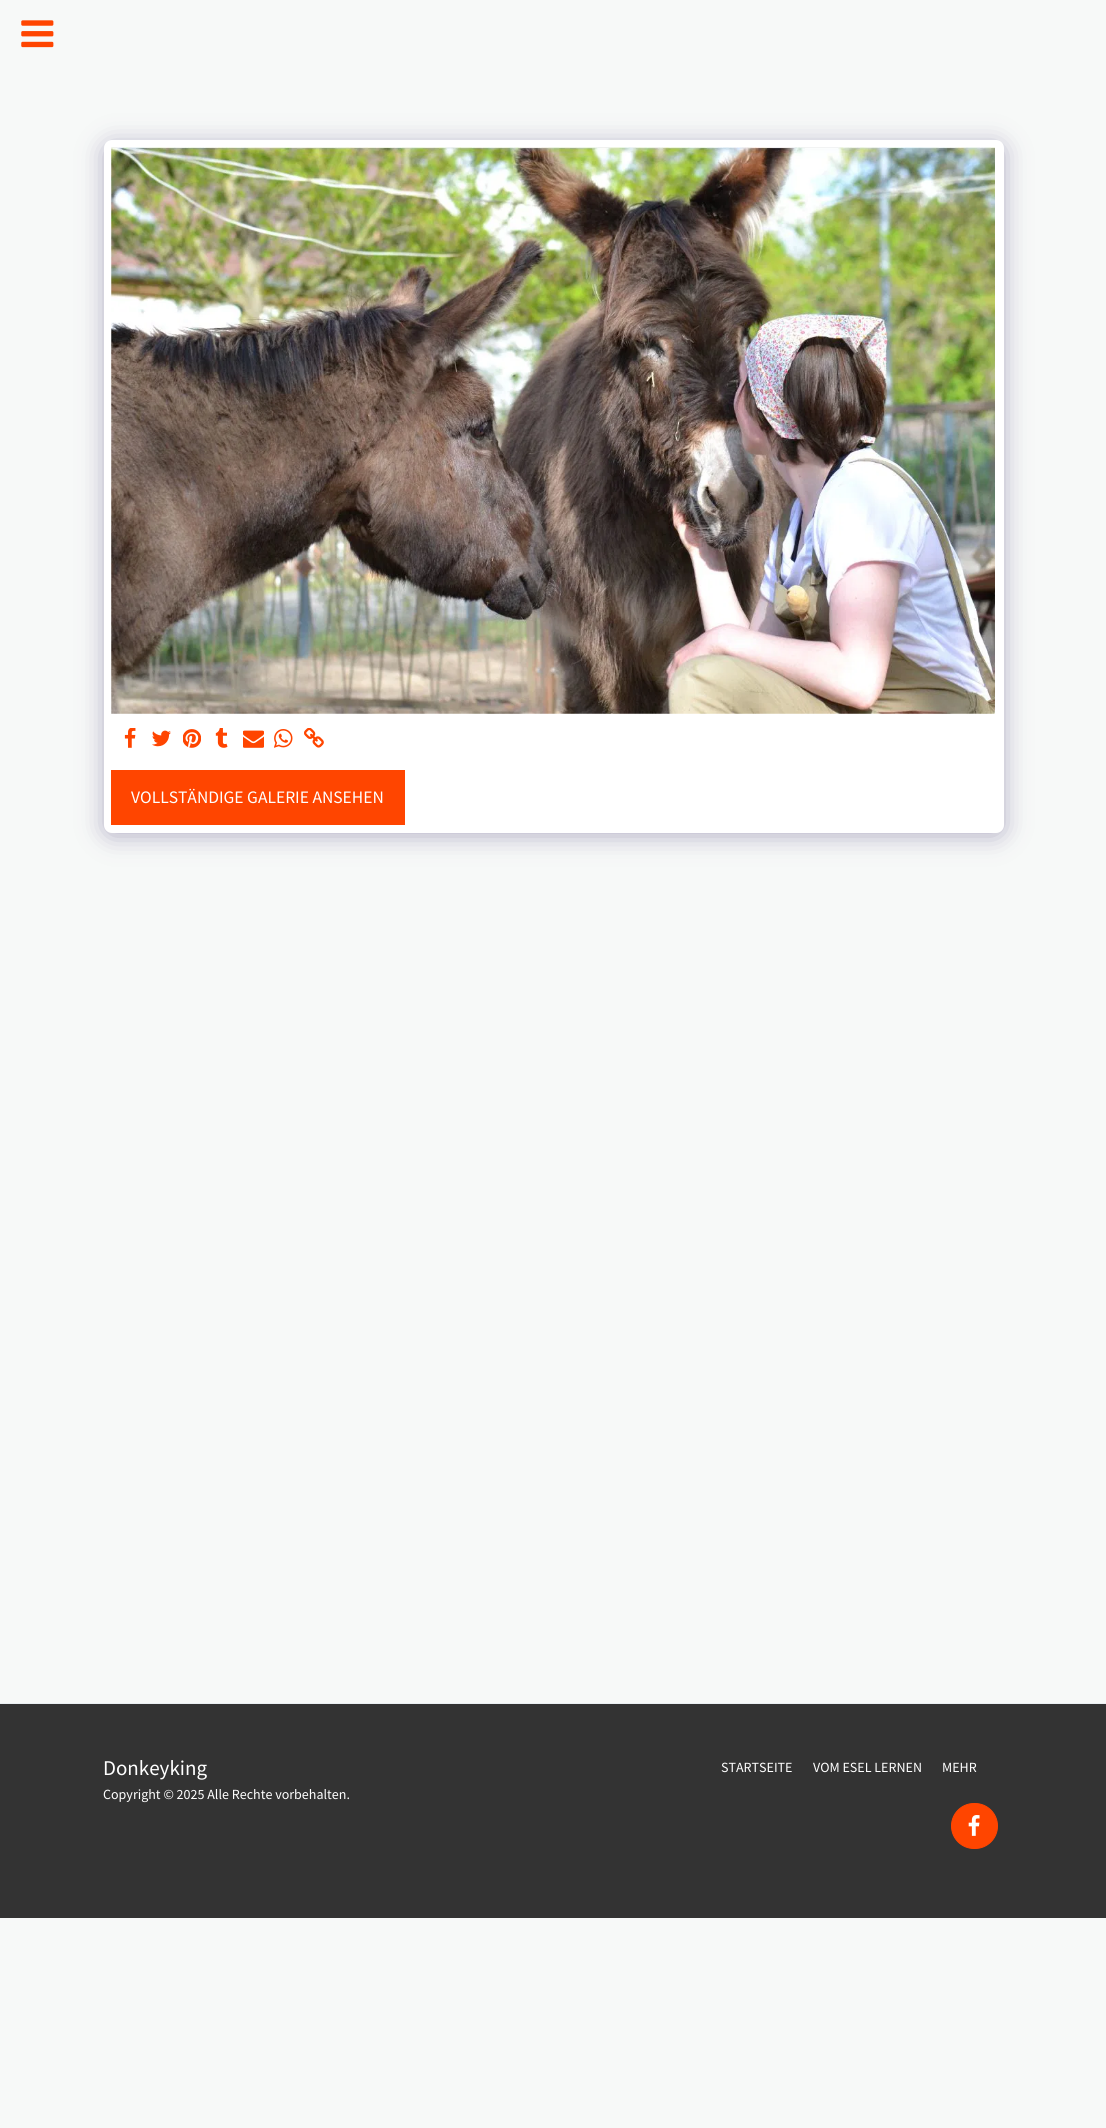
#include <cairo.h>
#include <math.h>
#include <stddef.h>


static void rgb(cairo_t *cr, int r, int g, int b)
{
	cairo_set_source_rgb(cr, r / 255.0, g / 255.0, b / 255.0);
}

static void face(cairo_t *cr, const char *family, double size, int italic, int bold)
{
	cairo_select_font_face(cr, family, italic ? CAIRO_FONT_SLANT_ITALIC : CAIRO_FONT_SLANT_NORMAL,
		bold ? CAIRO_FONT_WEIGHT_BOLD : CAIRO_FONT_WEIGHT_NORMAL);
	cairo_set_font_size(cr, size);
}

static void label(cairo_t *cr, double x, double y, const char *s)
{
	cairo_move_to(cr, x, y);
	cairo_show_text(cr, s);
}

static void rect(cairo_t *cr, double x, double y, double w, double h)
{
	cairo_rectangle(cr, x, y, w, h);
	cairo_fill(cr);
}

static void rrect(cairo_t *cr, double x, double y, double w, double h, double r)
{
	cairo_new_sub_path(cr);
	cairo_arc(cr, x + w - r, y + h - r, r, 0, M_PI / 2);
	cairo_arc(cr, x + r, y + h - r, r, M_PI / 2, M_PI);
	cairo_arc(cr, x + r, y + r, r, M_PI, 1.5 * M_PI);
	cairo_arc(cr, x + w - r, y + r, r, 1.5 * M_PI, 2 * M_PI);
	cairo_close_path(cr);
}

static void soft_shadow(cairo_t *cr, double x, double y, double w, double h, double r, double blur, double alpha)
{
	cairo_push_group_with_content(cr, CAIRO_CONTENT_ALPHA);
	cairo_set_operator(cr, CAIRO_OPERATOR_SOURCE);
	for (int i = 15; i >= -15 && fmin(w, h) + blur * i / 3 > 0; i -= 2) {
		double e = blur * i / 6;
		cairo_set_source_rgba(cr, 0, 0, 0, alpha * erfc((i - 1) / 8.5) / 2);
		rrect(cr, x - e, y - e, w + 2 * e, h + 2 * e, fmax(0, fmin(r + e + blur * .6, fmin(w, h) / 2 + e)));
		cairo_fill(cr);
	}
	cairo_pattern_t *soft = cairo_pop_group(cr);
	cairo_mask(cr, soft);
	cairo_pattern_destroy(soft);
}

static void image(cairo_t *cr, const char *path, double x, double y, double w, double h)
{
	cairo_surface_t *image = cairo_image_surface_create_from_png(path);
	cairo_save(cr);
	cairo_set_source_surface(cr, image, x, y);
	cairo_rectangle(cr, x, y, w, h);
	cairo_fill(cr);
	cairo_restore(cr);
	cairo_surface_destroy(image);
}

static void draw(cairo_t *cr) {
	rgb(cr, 247, 249, 248);
	cairo_paint(cr);
	image(cr, "image0.png", 21, 20, 33, 28);
	rgb(cr, 77, 63, 122);
	soft_shadow(cr, 104, 144, 900, 692, 8, 12.5, 0.4);
	rgb(cr, 255, 255, 255);
	rrect(cr, 104, 140, 900, 693, 8);
	cairo_fill(cr);
	image(cr, "image1.png", 111, 147, 884, 567);
	image(cr, "image2.png", 124, 728, 12, 20);
	image(cr, "image3.png", 152, 730, 19, 17);
	image(cr, "image4.png", 183, 729, 18, 19);
	image(cr, "image5.png", 215, 728, 13, 20);
	image(cr, "image6.png", 243, 730, 21, 18);
	image(cr, "image7.png", 274, 729, 19, 19);
	image(cr, "image8.png", 304, 728, 20, 20);
	rgb(cr, 255, 69, 0);
	rect(cr, 111, 770, 294, 55);
	face(cr, "Source Sans Pro", 17.5, 0, 0);
	rgb(cr, 255, 255, 255);
	label(cr, 131, 803, "VOLLSTÄNDIGE GALERIE ANSEHEN");
	rgb(cr, 51, 51, 51);
	rect(cr, 0, 1704, 1106, 214);
	rgb(cr, 234, 239, 242);
	rect(cr, 0, 1703, 1106, 1);
	face(cr, "Source Sans Pro", 21, 0, 0);
	rgb(cr, 255, 255, 255);
	label(cr, 103, 1775, "Donkeyking");
	face(cr, "Source Sans Pro", 14, 0, 0);
	label(cr, 103, 1799, "Copyright © 2025 Alle Rechte vorbehalten.");
	label(cr, 721, 1772, "STARTSEITE");
	label(cr, 813, 1772, "VOM ESEL LERNEN");
	label(cr, 942, 1772, "MEHR");
	rgb(cr, 255, 69, 0);
	rrect(cr, 951.5, 1803.5, 46, 45, 22.5);
	cairo_fill_preserve(cr);
	cairo_set_line_width(cr, 1);
	cairo_stroke(cr);
	image(cr, "image9.png", 968, 1815, 12, 21);
}

int main(void) {
	cairo_surface_t *surface = cairo_image_surface_create(CAIRO_FORMAT_RGB24, 1106, 2128);
	cairo_t *cr = cairo_create(surface);
	cairo_font_options_t *options = cairo_font_options_create();
	cairo_font_options_set_hint_metrics(options, CAIRO_HINT_METRICS_OFF);
	cairo_font_options_set_hint_style(options, CAIRO_HINT_STYLE_NONE);
	cairo_set_font_options(cr, options);
	cairo_set_miter_limit(cr, 4);
	draw(cr);
	cairo_surface_write_to_png(surface, "render.png");
	cairo_font_options_destroy(options);
	cairo_destroy(cr);
	cairo_surface_destroy(surface);
	return 0;
}
